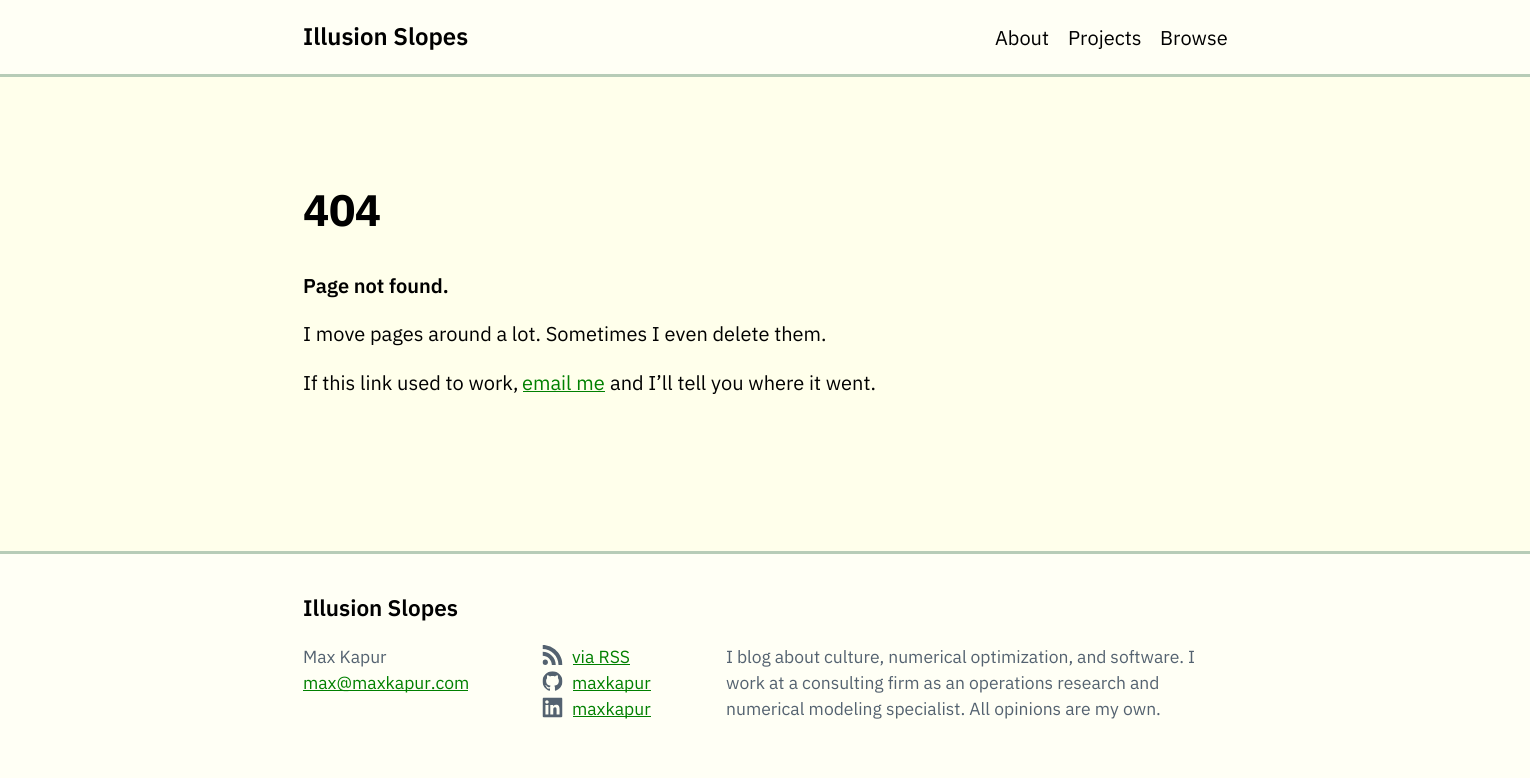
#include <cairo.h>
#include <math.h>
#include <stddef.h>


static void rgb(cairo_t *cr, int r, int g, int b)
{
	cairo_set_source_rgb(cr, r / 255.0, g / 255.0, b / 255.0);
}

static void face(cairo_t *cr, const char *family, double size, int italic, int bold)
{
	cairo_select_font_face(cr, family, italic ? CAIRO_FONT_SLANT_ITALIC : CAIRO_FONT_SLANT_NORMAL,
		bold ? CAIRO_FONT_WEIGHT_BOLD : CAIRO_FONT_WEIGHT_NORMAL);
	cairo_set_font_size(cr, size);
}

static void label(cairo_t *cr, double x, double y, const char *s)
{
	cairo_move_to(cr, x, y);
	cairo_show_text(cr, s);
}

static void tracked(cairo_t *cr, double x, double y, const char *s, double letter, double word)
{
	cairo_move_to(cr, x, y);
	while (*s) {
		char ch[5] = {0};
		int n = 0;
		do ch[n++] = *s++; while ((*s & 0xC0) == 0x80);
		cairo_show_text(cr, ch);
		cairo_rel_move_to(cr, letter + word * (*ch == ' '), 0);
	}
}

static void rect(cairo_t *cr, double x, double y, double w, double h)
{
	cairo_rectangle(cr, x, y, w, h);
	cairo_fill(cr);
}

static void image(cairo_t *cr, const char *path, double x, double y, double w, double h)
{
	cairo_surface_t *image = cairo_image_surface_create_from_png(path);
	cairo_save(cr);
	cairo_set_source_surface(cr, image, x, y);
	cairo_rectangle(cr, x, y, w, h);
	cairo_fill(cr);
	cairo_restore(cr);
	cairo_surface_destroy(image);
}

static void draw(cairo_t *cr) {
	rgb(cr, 255, 255, 235);
	cairo_paint(cr);
	rgb(cr, 255, 255, 245);
	rect(cr, 0, 0, 1530, 74);
	rgb(cr, 183, 204, 183);
	rect(cr, 0, 74, 1530, 3);
	face(cr, "IBM Plex Sans SemiBold", 24, 0, 0);
	rgb(cr, 0, 0, 0);
	label(cr, 303, 45, "Illusion Slopes");
	face(cr, "IBM Plex Sans", 20, 0, 0);
	label(cr, 995, 45, "About");
	label(cr, 1068, 45, "Projects");
	label(cr, 1160, 45, "Browse");
	face(cr, "IBM Plex Sans", 44, 0, 1);
	tracked(cr, 303, 226, "404", -0.5, 0);
	face(cr, "IBM Plex Sans SemiBold", 20, 0, 0);
	label(cr, 303, 293, "Page not found.");
	face(cr, "IBM Plex Sans", 20, 0, 0);
	label(cr, 303, 341, "I move pages around a lot. Sometimes I even delete them.");
	label(cr, 303, 390, "If this link used to work,");
	rgb(cr, 0, 128, 0);
	label(cr, 522, 390, "email me");
	rect(cr, 523, 391, 82, 1);
	rgb(cr, 0, 0, 0);
	label(cr, 610, 390, "and I’ll tell you where it went.");
	rgb(cr, 255, 255, 245);
	rect(cr, 0, 554, 1530, 224);
	rgb(cr, 183, 204, 183);
	rect(cr, 0, 551, 1530, 3);
	face(cr, "IBM Plex Sans SemiBold", 22.5, 0, 0);
	rgb(cr, 0, 0, 0);
	label(cr, 303, 616, "Illusion Slopes");
	face(cr, "IBM Plex Sans", 17.5, 0, 0);
	rgb(cr, 84, 98, 112);
	label(cr, 303, 663, "Max Kapur");
	rgb(cr, 0, 128, 0);
	rect(cr, 303, 690, 165, 1);
	label(cr, 303, 689, "max@maxkapur.com");
	image(cr, "image0.png", 542, 645, 21, 20);
	label(cr, 572, 663, "via RSS");
	rect(cr, 573, 664, 57, 1);
	image(cr, "image1.png", 542, 671, 21, 20);
	rect(cr, 573, 690, 78, 1);
	label(cr, 572, 689, "maxkapur");
	image(cr, "image2.png", 542, 697, 21, 21);
	rect(cr, 573, 716, 78, 1);
	label(cr, 572, 715, "maxkapur");
	rgb(cr, 84, 98, 112);
	tracked(cr, 726, 663, "I blog about culture, numerical optimization, and software. I", 0, -0.25);
	label(cr, 726, 689, "work at a consulting firm as an operations research and");
	label(cr, 726, 715, "numerical modeling specialist. All opinions are my own.");
}

int main(void) {
	cairo_surface_t *surface = cairo_image_surface_create(CAIRO_FORMAT_RGB24, 1530, 778);
	cairo_t *cr = cairo_create(surface);
	cairo_font_options_t *options = cairo_font_options_create();
	cairo_font_options_set_hint_metrics(options, CAIRO_HINT_METRICS_OFF);
	cairo_font_options_set_hint_style(options, CAIRO_HINT_STYLE_NONE);
	cairo_set_font_options(cr, options);
	cairo_set_miter_limit(cr, 4);
	draw(cr);
	cairo_surface_write_to_png(surface, "render.png");
	cairo_font_options_destroy(options);
	cairo_destroy(cr);
	cairo_surface_destroy(surface);
	return 0;
}
